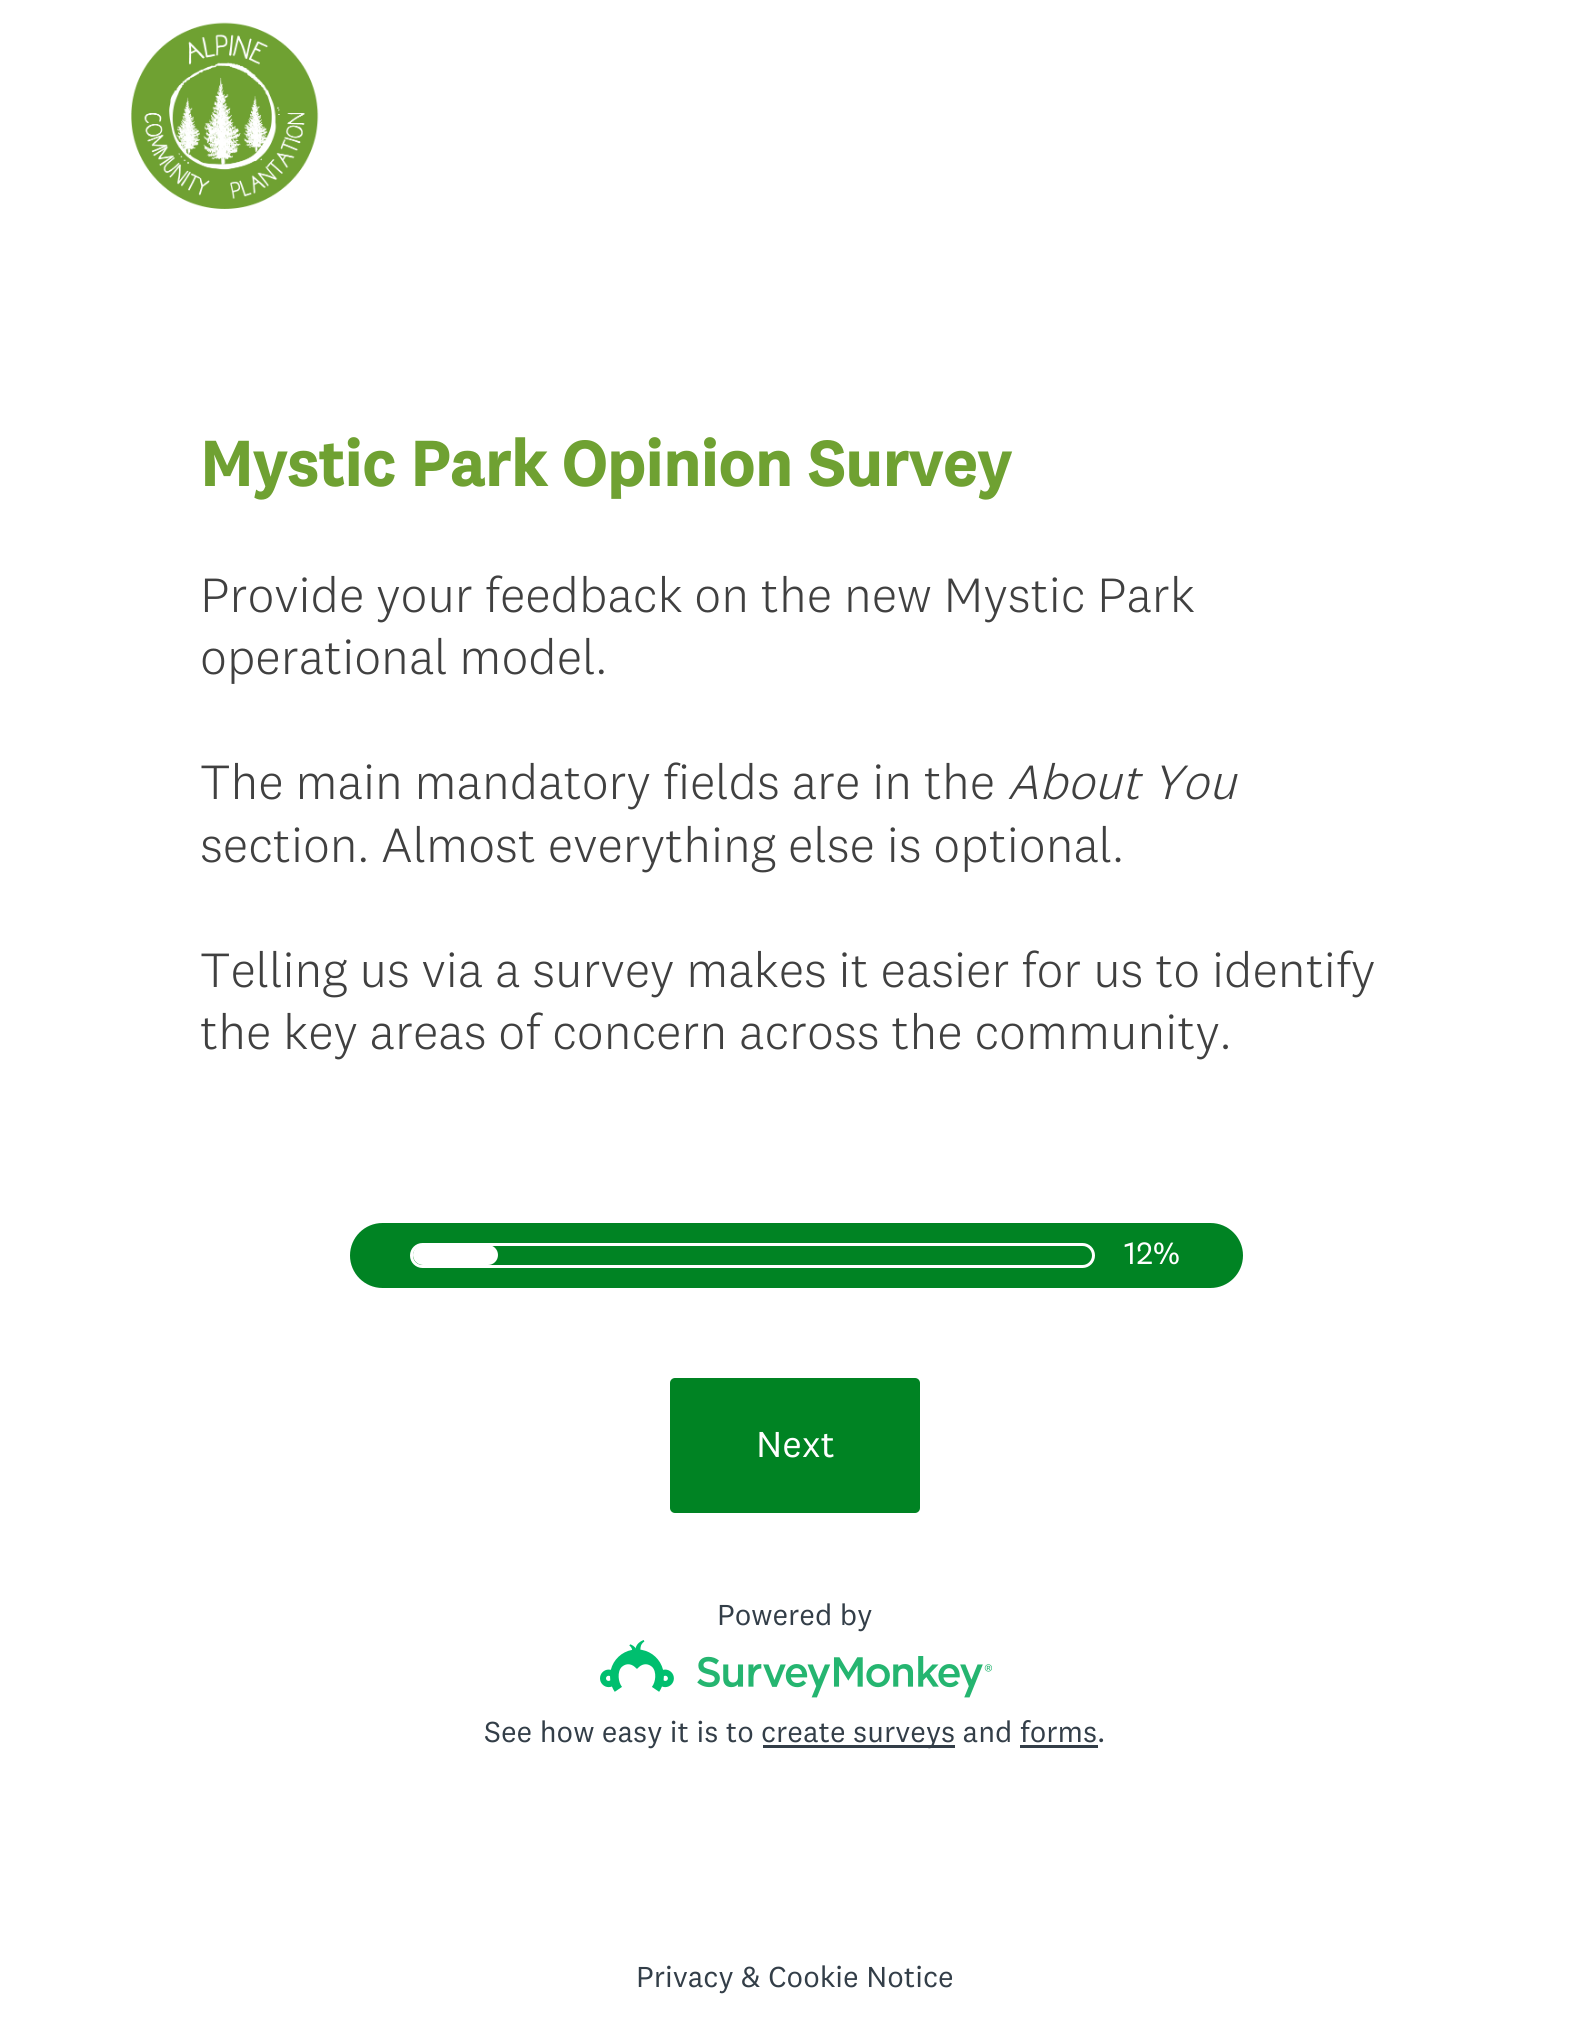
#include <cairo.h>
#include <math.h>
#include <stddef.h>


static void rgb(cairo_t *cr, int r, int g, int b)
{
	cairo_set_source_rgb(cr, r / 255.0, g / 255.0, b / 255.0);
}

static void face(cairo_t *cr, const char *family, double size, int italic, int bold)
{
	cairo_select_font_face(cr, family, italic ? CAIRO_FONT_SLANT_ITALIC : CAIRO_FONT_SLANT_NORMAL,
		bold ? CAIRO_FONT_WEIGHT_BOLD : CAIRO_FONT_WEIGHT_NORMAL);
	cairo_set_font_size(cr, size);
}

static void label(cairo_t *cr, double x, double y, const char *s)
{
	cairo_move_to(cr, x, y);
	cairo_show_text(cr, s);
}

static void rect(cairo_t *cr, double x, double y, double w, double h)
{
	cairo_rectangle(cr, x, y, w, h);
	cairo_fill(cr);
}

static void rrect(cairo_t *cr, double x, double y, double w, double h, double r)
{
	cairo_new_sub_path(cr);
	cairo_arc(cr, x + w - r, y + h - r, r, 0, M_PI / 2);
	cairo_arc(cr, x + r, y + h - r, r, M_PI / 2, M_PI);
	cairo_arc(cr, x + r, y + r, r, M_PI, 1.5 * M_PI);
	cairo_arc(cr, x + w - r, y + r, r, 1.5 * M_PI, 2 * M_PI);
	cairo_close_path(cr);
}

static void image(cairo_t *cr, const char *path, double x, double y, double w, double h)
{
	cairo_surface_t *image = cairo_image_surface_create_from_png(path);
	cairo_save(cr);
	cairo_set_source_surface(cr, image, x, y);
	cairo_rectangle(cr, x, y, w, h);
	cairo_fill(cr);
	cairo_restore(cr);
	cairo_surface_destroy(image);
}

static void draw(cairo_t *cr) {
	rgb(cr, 255, 255, 255);
	cairo_paint(cr);
	image(cr, "image0.png", 131, 22, 188, 187);
	face(cr, "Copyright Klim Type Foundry", 65, 0, 1);
	rgb(cr, 111, 161, 50);
	label(cr, 200, 486, "Mystic Park Opinion Survey");
	face(cr, "Copyright Klim Type Foundry Light", 50, 0, 0);
	rgb(cr, 64, 64, 64);
	label(cr, 200, 612, "Provide your feedback on the new Mystic Park");
	label(cr, 200, 674, "operational model.");
	label(cr, 200, 799, "The main mandatory fields are in the");
	face(cr, "Copyright Klim Type Foundry Light", 50, 1, 0);
	label(cr, 1007, 799, "About You");
	face(cr, "Copyright Klim Type Foundry Light", 50, 0, 0);
	label(cr, 200, 862, "section. Almost everything else is optional.");
	label(cr, 200, 987, "Telling us via a survey makes it easier for us to identify");
	label(cr, 200, 1049, "the key areas of concern across the community.");
	rgb(cr, 0, 131, 35);
	rrect(cr, 350, 1223, 893, 65, 32.5);
	cairo_fill(cr);
	rrect(cr, 411.5, 1244.5, 682, 22, 11);
	rgb(cr, 255, 255, 255);
	cairo_set_line_width(cr, 3);
	cairo_stroke(cr);
	rrect(cr, 413, 1245, 85, 20, 10);
	cairo_fill(cr);
	face(cr, "Copyright Klim Type Foundry", 32, 0, 0);
	label(cr, 1124, 1264, "12%");
	rgb(cr, 0, 131, 35);
	rrect(cr, 670, 1378, 250, 135, 5);
	cairo_fill(cr);
	face(cr, "Copyright Klim Type Foundry", 37.5, 0, 0);
	rgb(cr, 255, 255, 255);
	label(cr, 756, 1457, "Next");
	face(cr, "Copyright Klim Type Foundry", 30, 0, 0);
	rgb(cr, 51, 62, 72);
	label(cr, 717, 1625, "Powered by");
	image(cr, "image1.png", 600, 1640, 392, 58);
	label(cr, 484, 1742, "See how easy it is to");
	rect(cr, 763, 1745, 192, 3);
	label(cr, 761, 1742, "create surveys and forms.");
	rect(cr, 1020, 1745, 78, 3);
	label(cr, 636, 1987, "Privacy & Cookie Notice");
}

int main(void) {
	cairo_surface_t *surface = cairo_image_surface_create(CAIRO_FORMAT_RGB24, 1588, 2031);
	cairo_t *cr = cairo_create(surface);
	cairo_font_options_t *options = cairo_font_options_create();
	cairo_font_options_set_hint_metrics(options, CAIRO_HINT_METRICS_OFF);
	cairo_font_options_set_hint_style(options, CAIRO_HINT_STYLE_NONE);
	cairo_set_font_options(cr, options);
	cairo_set_miter_limit(cr, 4);
	draw(cr);
	cairo_surface_write_to_png(surface, "render.png");
	cairo_font_options_destroy(options);
	cairo_destroy(cr);
	cairo_surface_destroy(surface);
	return 0;
}
